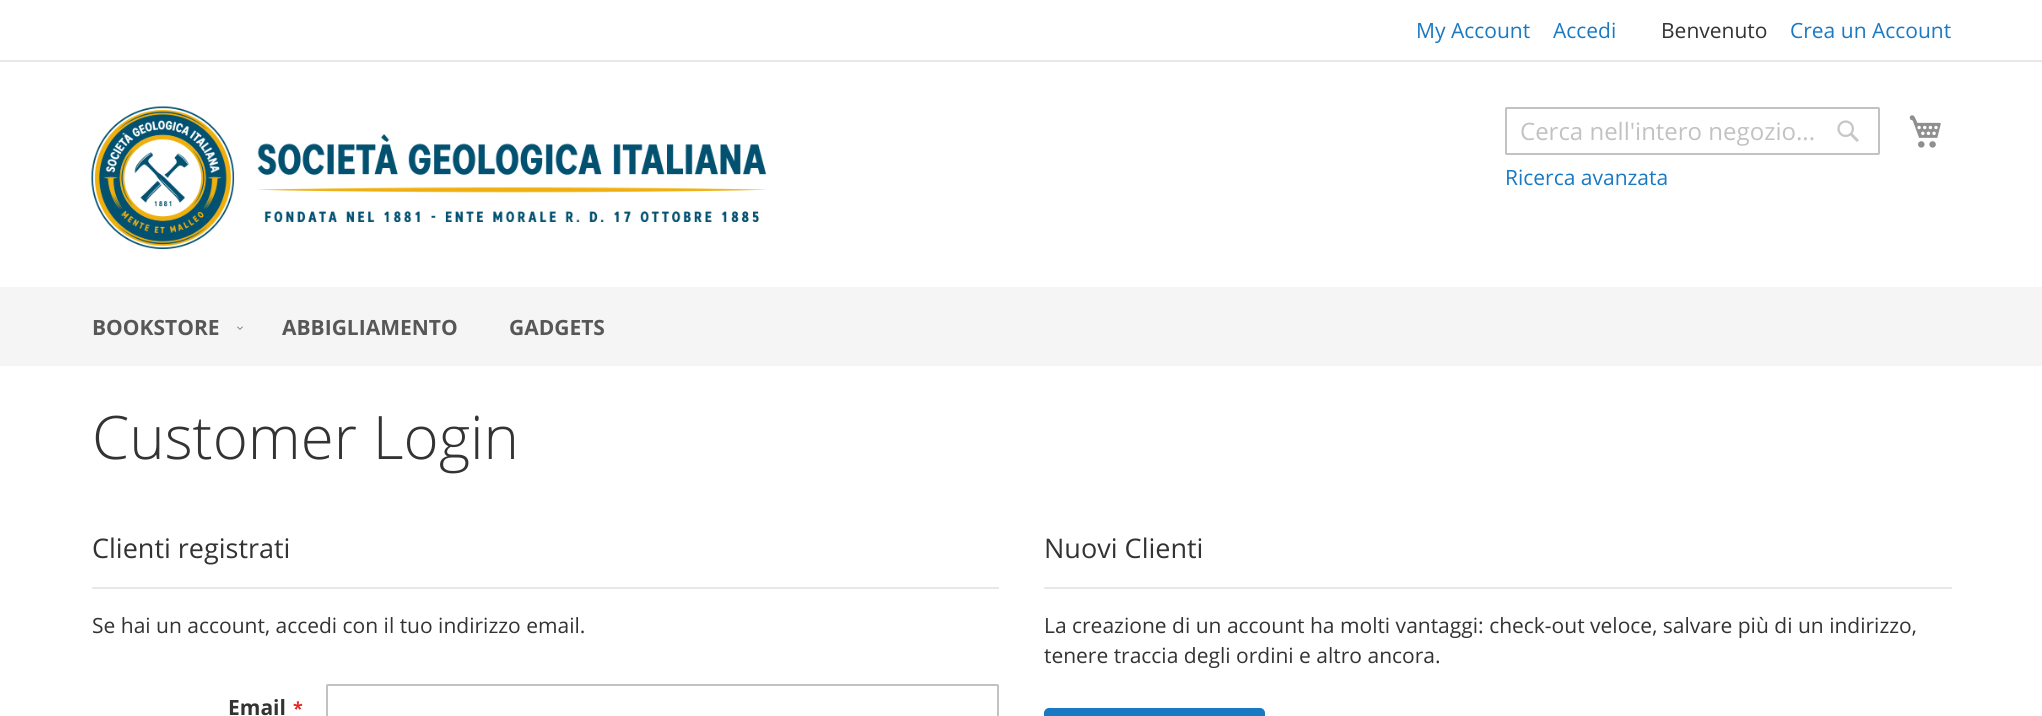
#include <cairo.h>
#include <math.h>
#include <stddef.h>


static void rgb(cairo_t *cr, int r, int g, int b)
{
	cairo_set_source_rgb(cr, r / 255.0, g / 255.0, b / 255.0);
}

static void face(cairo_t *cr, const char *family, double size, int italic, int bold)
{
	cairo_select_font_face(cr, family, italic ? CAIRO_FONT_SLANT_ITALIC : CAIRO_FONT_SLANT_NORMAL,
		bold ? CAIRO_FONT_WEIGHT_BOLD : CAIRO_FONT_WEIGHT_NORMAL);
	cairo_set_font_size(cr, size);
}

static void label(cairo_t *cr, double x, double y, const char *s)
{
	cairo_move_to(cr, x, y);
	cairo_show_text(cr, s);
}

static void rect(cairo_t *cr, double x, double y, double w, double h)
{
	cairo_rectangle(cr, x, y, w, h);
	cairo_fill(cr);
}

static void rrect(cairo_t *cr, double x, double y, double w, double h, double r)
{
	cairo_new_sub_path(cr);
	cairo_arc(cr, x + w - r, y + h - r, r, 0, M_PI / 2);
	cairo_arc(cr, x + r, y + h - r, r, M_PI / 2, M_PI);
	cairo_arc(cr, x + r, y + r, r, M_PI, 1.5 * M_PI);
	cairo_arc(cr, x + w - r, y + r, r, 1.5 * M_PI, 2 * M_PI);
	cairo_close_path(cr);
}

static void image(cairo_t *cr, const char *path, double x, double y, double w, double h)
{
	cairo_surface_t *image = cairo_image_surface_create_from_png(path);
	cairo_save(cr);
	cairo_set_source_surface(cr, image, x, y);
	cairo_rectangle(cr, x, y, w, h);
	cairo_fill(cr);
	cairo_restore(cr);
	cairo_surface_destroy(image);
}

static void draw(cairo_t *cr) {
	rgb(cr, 255, 255, 255);
	cairo_paint(cr);
	rgb(cr, 232, 232, 232);
	rect(cr, 0, 60, 2042, 2);
	face(cr, "Open Sans", 21, 0, 0);
	rgb(cr, 25, 121, 195);
	label(cr, 1416, 38, "My Account");
	label(cr, 1553, 38, "Accedi");
	rgb(cr, 51, 51, 51);
	label(cr, 1661, 38, "Benvenuto");
	rgb(cr, 25, 121, 195);
	label(cr, 1790, 38, "Crea un Account");
	image(cr, "image0.png", 91, 106, 676, 143);
	rrect(cr, 1506, 108, 373, 46, 0.5);
	rgb(cr, 194, 194, 194);
	cairo_stroke(cr);
	face(cr, "Open Sans", 24, 0, 0);
	label(cr, 1520, 140, "Cerca nell'intero negozio...");
	face(cr, "Open Sans", 21, 0, 0);
	rgb(cr, 25, 121, 195);
	label(cr, 1505, 185, "Ricerca avanzata");
	image(cr, "image1.png", 1837, 120, 22, 22);
	image(cr, "image2.png", 1909, 115, 32, 33);
	rgb(cr, 245, 245, 245);
	rect(cr, 0, 287, 2042, 79);
	face(cr, "Open Sans", 21, 0, 1);
	rgb(cr, 87, 87, 87);
	label(cr, 92, 335, "BOOKSTORE");
	image(cr, "image3.png", 237, 326, 6, 4);
	label(cr, 282, 335, "ABBIGLIAMENTO");
	label(cr, 509, 335, "GADGETS");
	face(cr, "Open Sans Light", 60, 0, 0);
	rgb(cr, 51, 51, 51);
	label(cr, 92, 459, "Customer Login");
	rgb(cr, 232, 232, 232);
	rect(cr, 92, 587, 907, 2);
	face(cr, "Open Sans", 27, 0, 0);
	rgb(cr, 51, 51, 51);
	label(cr, 92, 558, "Clienti registrati");
	face(cr, "Open Sans", 21, 0, 0);
	label(cr, 92, 633, "Se hai un account, accedi con il tuo indirizzo email.");
	face(cr, "Open Sans", 21, 0, 1);
	label(cr, 228, 715, "Email");
	face(cr, "Open Sans", 18, 0, 1);
	rgb(cr, 224, 43, 39);
	label(cr, 293, 715, "*");
	rrect(cr, 327, 685, 671, 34, 0.5);
	rgb(cr, 194, 194, 194);
	cairo_stroke(cr);
	rgb(cr, 232, 232, 232);
	rect(cr, 1044, 587, 908, 2);
	face(cr, "Open Sans", 27, 0, 0);
	rgb(cr, 51, 51, 51);
	label(cr, 1044, 558, "Nuovi Clienti");
	face(cr, "Open Sans", 21, 0, 0);
	label(cr, 1044, 633, "La creazione di un account ha molti vantaggi: check-out veloce, salvare più di un indirizzo,");
	label(cr, 1044, 663, "tenere traccia degli ordini e altro ancora.");
	rgb(cr, 25, 121, 195);
	rrect(cr, 1045, 709, 219, 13, 4);
	cairo_fill_preserve(cr);
	cairo_stroke(cr);
}

int main(void) {
	cairo_surface_t *surface = cairo_image_surface_create(CAIRO_FORMAT_RGB24, 2042, 716);
	cairo_t *cr = cairo_create(surface);
	cairo_font_options_t *options = cairo_font_options_create();
	cairo_font_options_set_hint_metrics(options, CAIRO_HINT_METRICS_OFF);
	cairo_font_options_set_hint_style(options, CAIRO_HINT_STYLE_NONE);
	cairo_set_font_options(cr, options);
	cairo_set_miter_limit(cr, 4);
	draw(cr);
	cairo_surface_write_to_png(surface, "render.png");
	cairo_font_options_destroy(options);
	cairo_destroy(cr);
	cairo_surface_destroy(surface);
	return 0;
}
